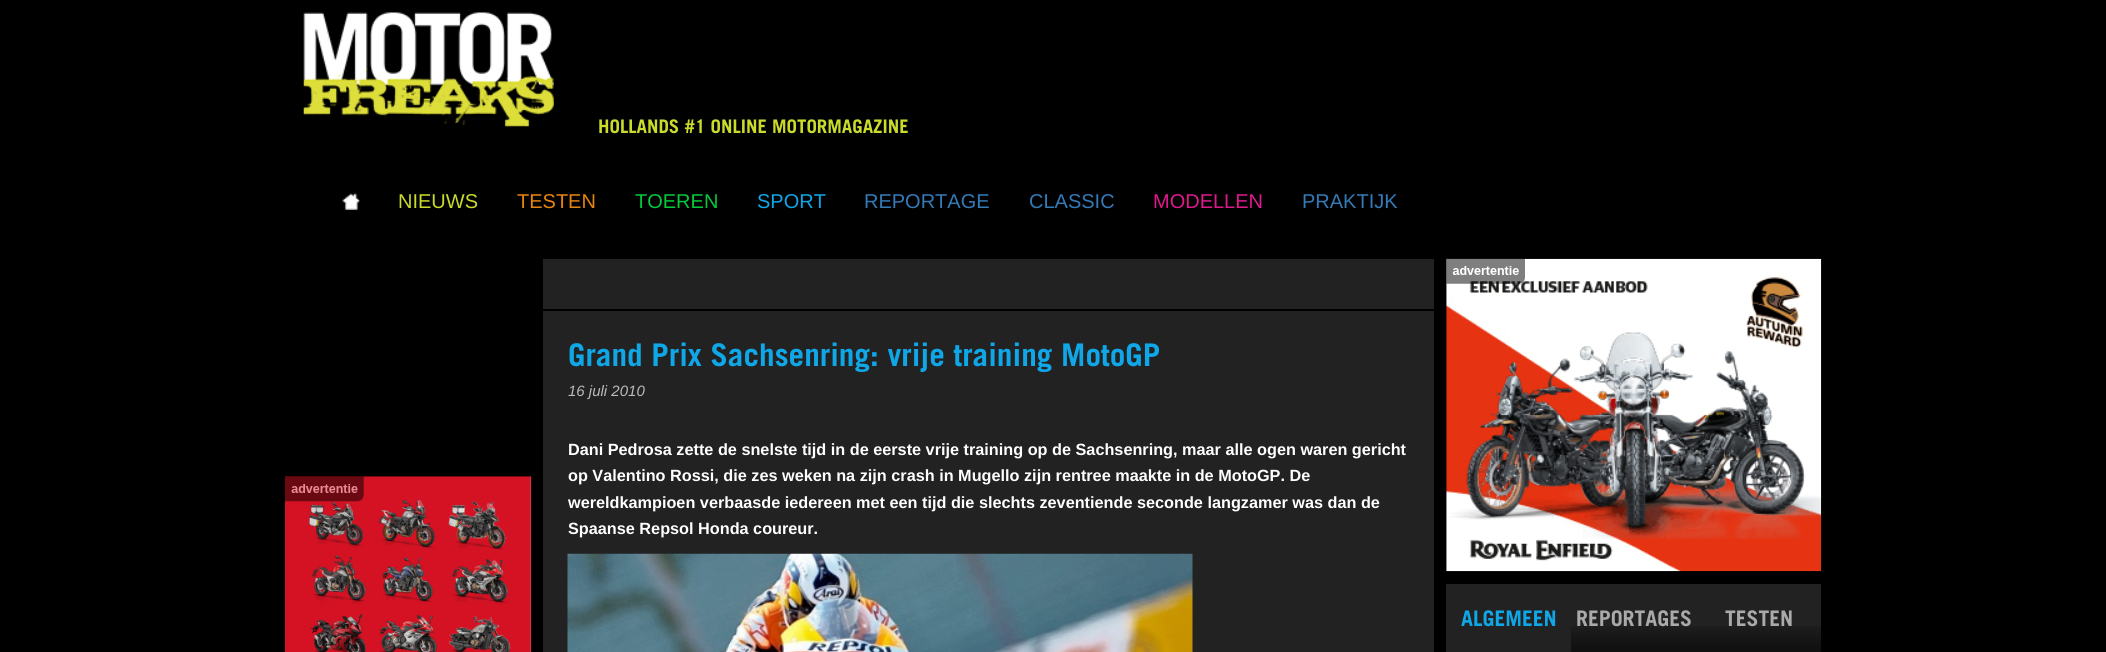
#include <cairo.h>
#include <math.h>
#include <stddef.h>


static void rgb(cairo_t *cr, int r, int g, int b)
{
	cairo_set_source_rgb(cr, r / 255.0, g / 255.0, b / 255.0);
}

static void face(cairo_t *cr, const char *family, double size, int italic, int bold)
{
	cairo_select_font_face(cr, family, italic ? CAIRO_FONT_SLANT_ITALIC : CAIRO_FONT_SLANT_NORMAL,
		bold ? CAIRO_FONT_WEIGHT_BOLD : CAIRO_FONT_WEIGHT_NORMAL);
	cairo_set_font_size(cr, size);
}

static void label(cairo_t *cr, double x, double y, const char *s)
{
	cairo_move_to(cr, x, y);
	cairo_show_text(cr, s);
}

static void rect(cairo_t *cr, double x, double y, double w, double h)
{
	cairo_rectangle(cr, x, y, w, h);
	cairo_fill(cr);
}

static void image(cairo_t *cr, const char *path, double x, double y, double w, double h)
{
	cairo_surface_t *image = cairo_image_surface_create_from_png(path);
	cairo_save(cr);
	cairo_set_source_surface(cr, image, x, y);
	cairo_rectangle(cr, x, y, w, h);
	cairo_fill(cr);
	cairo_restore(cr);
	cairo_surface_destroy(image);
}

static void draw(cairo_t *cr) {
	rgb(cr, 0, 0, 0);
	cairo_paint(cr);
	image(cr, "image0.png", 303, 12, 251, 115);
	face(cr, "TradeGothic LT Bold", 18.75, 0, 1);
	rgb(cr, 202, 219, 42);
	label(cr, 598, 133, "HOLLANDS #1 ONLINE MOTORMAGAZINE");
	image(cr, "image1.png", 342, 193, 18, 17);
	face(cr, "Liberation Sans", 20, 0, 0);
	label(cr, 398, 208, "NIEUWS");
	rgb(cr, 231, 132, 15);
	label(cr, 517, 208, "TESTEN");
	rgb(cr, 3, 201, 59);
	label(cr, 635, 208, "TOEREN");
	rgb(cr, 15, 167, 231);
	label(cr, 757, 208, "SPORT");
	rgb(cr, 51, 122, 183);
	label(cr, 864, 208, "REPORTAGE");
	label(cr, 1029, 208, "CLASSIC");
	rgb(cr, 223, 25, 140);
	label(cr, 1153, 208, "MODELLEN");
	rgb(cr, 51, 122, 183);
	label(cr, 1302, 208, "PRAKTIJK");
	rgb(cr, 34, 34, 34);
	rect(cr, 543, 259, 891, 50);
	rect(cr, 543, 311, 891, 341);
	face(cr, "TradeGothic LT Bold", 31.25, 0, 1);
	rgb(cr, 15, 167, 231);
	label(cr, 568, 366, "Grand Prix Sachsenring: vrije training MotoGP");
	face(cr, "Liberation Sans", 15, 1, 0);
	rgb(cr, 187, 187, 187);
	label(cr, 568, 396, "16 juli 2010");
	face(cr, "Liberation Sans", 16.25, 0, 1);
	rgb(cr, 255, 255, 255);
	label(cr, 568, 455, "Dani Pedrosa zette de snelste tijd in de eerste vrije training op de Sachsenring, maar alle ogen waren gericht");
	label(cr, 568, 481, "op Valentino Rossi, die zes weken na zijn crash in Mugello zijn rentree maakte in de MotoGP. De");
	label(cr, 568, 508, "wereldkampioen verbaasde iedereen met een tijd die slechts zeventiende seconde langzamer was dan de");
	label(cr, 568, 534, "Spaanse Repsol Honda coureur.");
	image(cr, "image2.png", 567, 553, 626, 99);
	image(cr, "image3.png", 285, 476, 247, 176);
	image(cr, "image4.png", 1446, 258, 376, 314);
	rgb(cr, 34, 34, 34);
	rect(cr, 1571, 584, 250, 42);
	image(cr, "image5.png", 1571, 626, 250, 26);
	rect(cr, 1446, 584, 125, 68);
	face(cr, "TradeGothic LT Bold", 21.5, 0, 1);
	rgb(cr, 15, 167, 231);
	label(cr, 1461, 626, "ALGEMEEN");
	rgb(cr, 170, 170, 170);
	label(cr, 1576, 626, "REPORTAGES");
	label(cr, 1725, 626, "TESTEN");
}

int main(void) {
	cairo_surface_t *surface = cairo_image_surface_create(CAIRO_FORMAT_RGB24, 2106, 652);
	cairo_t *cr = cairo_create(surface);
	cairo_font_options_t *options = cairo_font_options_create();
	cairo_font_options_set_hint_metrics(options, CAIRO_HINT_METRICS_OFF);
	cairo_font_options_set_hint_style(options, CAIRO_HINT_STYLE_NONE);
	cairo_set_font_options(cr, options);
	cairo_set_miter_limit(cr, 4);
	draw(cr);
	cairo_surface_write_to_png(surface, "render.png");
	cairo_font_options_destroy(options);
	cairo_destroy(cr);
	cairo_surface_destroy(surface);
	return 0;
}
